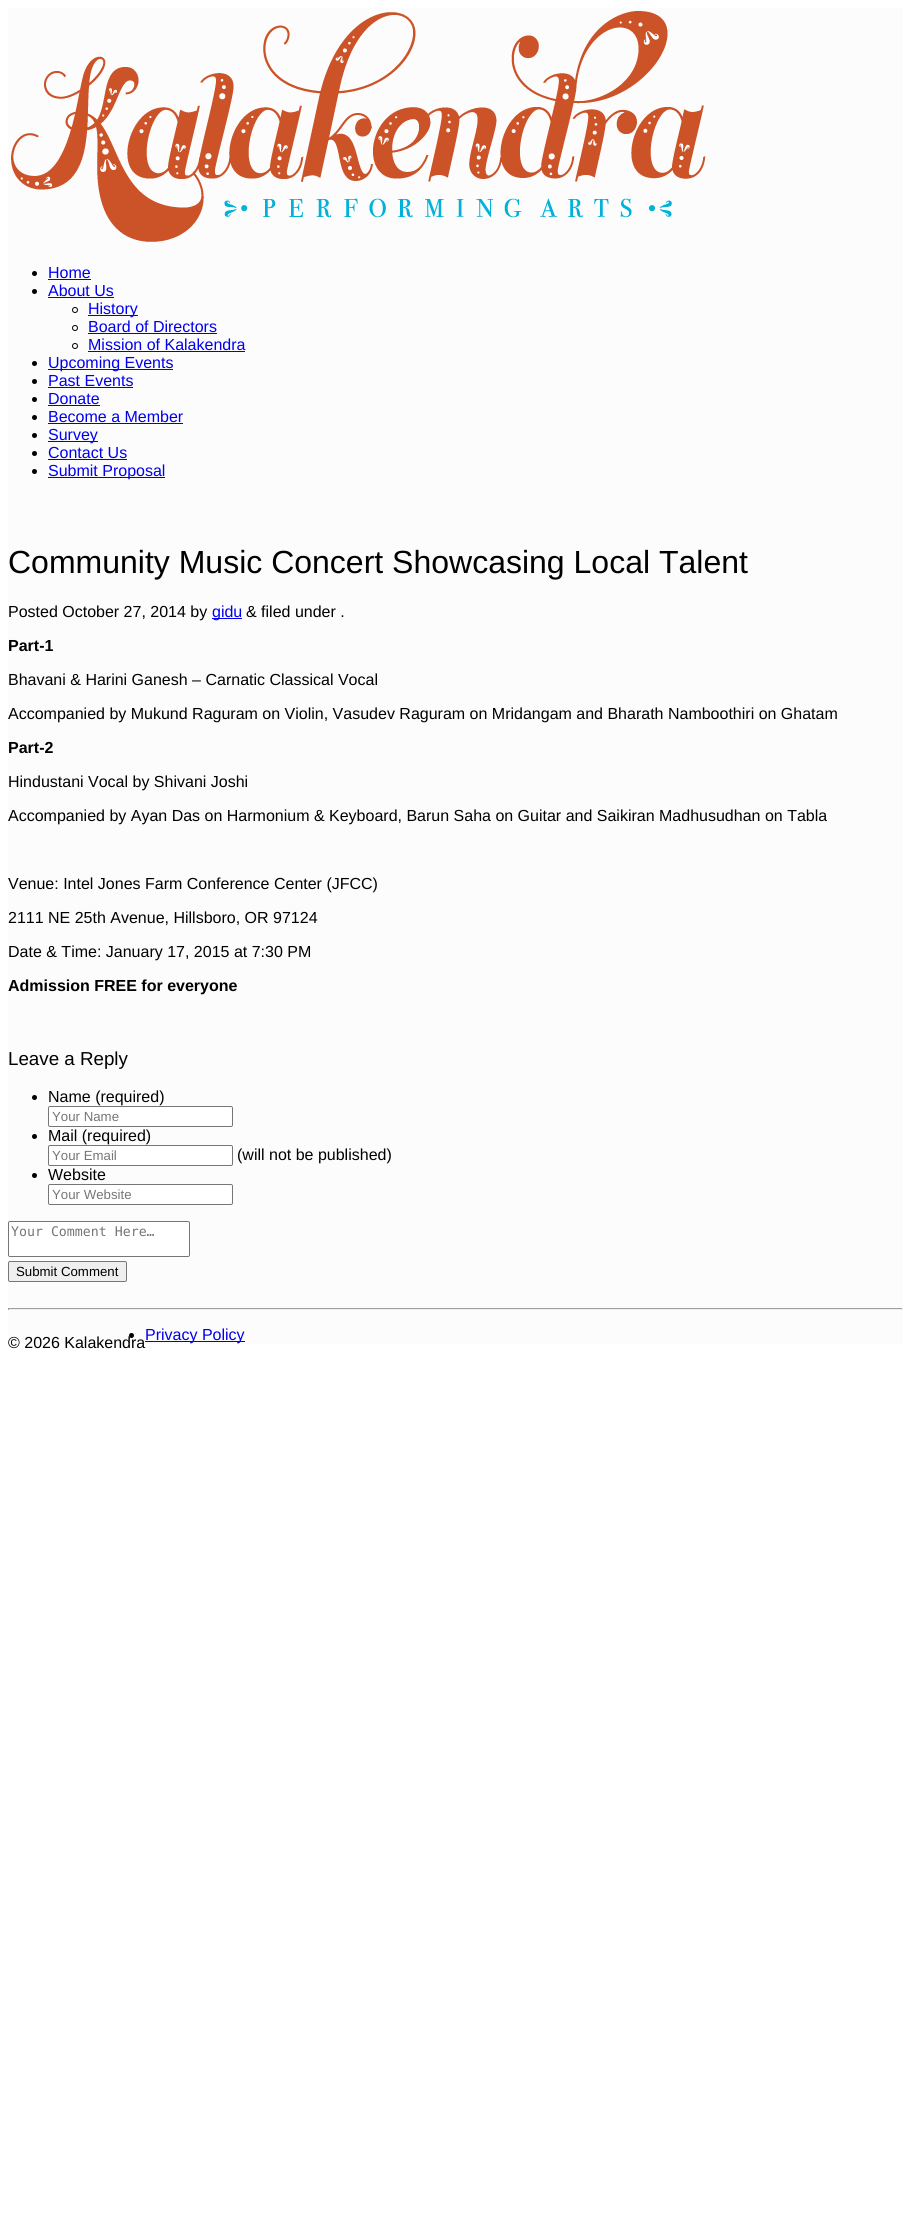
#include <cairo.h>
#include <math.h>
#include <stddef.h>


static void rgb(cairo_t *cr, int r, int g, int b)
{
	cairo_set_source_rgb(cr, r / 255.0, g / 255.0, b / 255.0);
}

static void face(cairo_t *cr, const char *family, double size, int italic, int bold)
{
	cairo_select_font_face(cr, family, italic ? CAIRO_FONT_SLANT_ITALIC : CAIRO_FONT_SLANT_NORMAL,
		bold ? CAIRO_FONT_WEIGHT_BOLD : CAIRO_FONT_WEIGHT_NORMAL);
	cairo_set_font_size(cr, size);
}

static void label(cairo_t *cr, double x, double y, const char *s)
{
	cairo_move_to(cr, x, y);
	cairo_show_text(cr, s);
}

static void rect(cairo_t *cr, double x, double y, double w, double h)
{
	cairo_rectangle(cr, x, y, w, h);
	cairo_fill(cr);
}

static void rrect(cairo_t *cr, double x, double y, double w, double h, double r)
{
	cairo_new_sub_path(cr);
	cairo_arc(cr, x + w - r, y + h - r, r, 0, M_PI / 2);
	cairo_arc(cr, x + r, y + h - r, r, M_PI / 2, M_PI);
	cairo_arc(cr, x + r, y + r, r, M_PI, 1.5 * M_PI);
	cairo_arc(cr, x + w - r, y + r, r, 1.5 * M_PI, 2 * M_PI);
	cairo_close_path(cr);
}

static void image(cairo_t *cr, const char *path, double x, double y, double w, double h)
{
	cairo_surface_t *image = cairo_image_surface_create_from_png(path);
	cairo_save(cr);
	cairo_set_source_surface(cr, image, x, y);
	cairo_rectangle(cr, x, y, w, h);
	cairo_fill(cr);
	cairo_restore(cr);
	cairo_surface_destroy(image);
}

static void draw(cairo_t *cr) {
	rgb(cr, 255, 255, 255);
	cairo_paint(cr);
	rgb(cr, 252, 252, 252);
	rect(cr, 8, 8, 895, 1336);
	image(cr, "image0.png", 11, 11, 695, 231);
	rgb(cr, 0, 0, 0);
	cairo_arc(cr, 34.5, 273.5, 2.5, 0, 2 * M_PI);
	cairo_fill(cr);
	face(cr, "Liberation Sans", 16, 0, 0);
	rgb(cr, 0, 0, 238);
	label(cr, 48, 278, "Home");
	rect(cr, 48, 279, 43, 1);
	rgb(cr, 0, 0, 0);
	cairo_new_path(cr);
	cairo_arc(cr, 34.5, 291.5, 2.5, 0, 2 * M_PI);
	cairo_fill(cr);
	rgb(cr, 0, 0, 238);
	label(cr, 48, 296, "About Us");
	rect(cr, 48, 297, 66, 1);
	cairo_new_path(cr);
	cairo_arc(cr, 75, 310, 2.5, 0, 2 * M_PI);
	rgb(cr, 0, 0, 0);
	cairo_set_line_width(cr, 1);
	cairo_stroke(cr);
	rgb(cr, 0, 0, 238);
	rect(cr, 88, 315, 50, 1);
	label(cr, 88, 314, "History");
	cairo_new_path(cr);
	cairo_arc(cr, 75, 328, 2.5, 0, 2 * M_PI);
	rgb(cr, 0, 0, 0);
	cairo_stroke(cr);
	rgb(cr, 0, 0, 238);
	label(cr, 88, 332, "Board of Directors");
	rect(cr, 88, 333, 129, 1);
	cairo_new_path(cr);
	cairo_arc(cr, 75, 346, 2.5, 0, 2 * M_PI);
	rgb(cr, 0, 0, 0);
	cairo_stroke(cr);
	rgb(cr, 0, 0, 238);
	label(cr, 88, 350, "Mission of Kalakendra");
	rect(cr, 88, 351, 157, 1);
	rgb(cr, 0, 0, 0);
	cairo_new_path(cr);
	cairo_arc(cr, 34.5, 363.5, 2.5, 0, 2 * M_PI);
	cairo_fill(cr);
	rgb(cr, 0, 0, 238);
	rect(cr, 48, 369, 125, 1);
	label(cr, 48, 368, "Upcoming Events");
	rgb(cr, 0, 0, 0);
	cairo_new_path(cr);
	cairo_arc(cr, 34.5, 381.5, 2.5, 0, 2 * M_PI);
	cairo_fill(cr);
	rgb(cr, 0, 0, 238);
	label(cr, 48, 386, "Past Events");
	rect(cr, 48, 387, 85, 1);
	rgb(cr, 0, 0, 0);
	cairo_new_path(cr);
	cairo_arc(cr, 34.5, 399.5, 2.5, 0, 2 * M_PI);
	cairo_fill(cr);
	rgb(cr, 0, 0, 238);
	label(cr, 48, 404, "Donate");
	rect(cr, 48, 405, 52, 1);
	rgb(cr, 0, 0, 0);
	cairo_new_path(cr);
	cairo_arc(cr, 34.5, 417.5, 2.5, 0, 2 * M_PI);
	cairo_fill(cr);
	rgb(cr, 0, 0, 238);
	label(cr, 48, 422, "Become a Member");
	rect(cr, 48, 423, 135, 1);
	rgb(cr, 0, 0, 0);
	cairo_new_path(cr);
	cairo_arc(cr, 34.5, 435.5, 2.5, 0, 2 * M_PI);
	cairo_fill(cr);
	rgb(cr, 0, 0, 238);
	rect(cr, 48, 441, 50, 1);
	label(cr, 48, 440, "Survey");
	rgb(cr, 0, 0, 0);
	cairo_new_path(cr);
	cairo_arc(cr, 34.5, 453.5, 2.5, 0, 2 * M_PI);
	cairo_fill(cr);
	rgb(cr, 0, 0, 238);
	label(cr, 48, 458, "Contact Us");
	rect(cr, 48, 459, 79, 1);
	rgb(cr, 0, 0, 0);
	cairo_new_path(cr);
	cairo_arc(cr, 34.5, 471.5, 2.5, 0, 2 * M_PI);
	cairo_fill(cr);
	rgb(cr, 0, 0, 238);
	rect(cr, 48, 477, 117, 1);
	label(cr, 48, 476, "Submit Proposal");
	face(cr, "Liberation Sans", 32, 0, 0);
	rgb(cr, 0, 0, 0);
	label(cr, 8, 573, "Community Music Concert Showcasing Local Talent");
	face(cr, "Liberation Sans", 16, 0, 0);
	label(cr, 8, 617, "Posted October 27, 2014 by");
	rgb(cr, 0, 0, 238);
	rect(cr, 212, 618, 30, 1);
	label(cr, 212, 617, "gidu");
	rgb(cr, 0, 0, 0);
	label(cr, 246, 617, "& filed under .");
	face(cr, "Liberation Sans", 16, 0, 1);
	label(cr, 8, 651, "Part-1");
	face(cr, "Liberation Sans", 16, 0, 0);
	label(cr, 8, 685, "Bhavani & Harini Ganesh – Carnatic Classical Vocal");
	label(cr, 8, 719, "Accompanied by Mukund Raguram on Violin, Vasudev Raguram on Mridangam and Bharath Namboothiri on Ghatam");
	face(cr, "Liberation Sans", 16, 0, 1);
	label(cr, 8, 753, "Part-2");
	face(cr, "Liberation Sans", 16, 0, 0);
	label(cr, 8, 787, "Hindustani Vocal by Shivani Joshi");
	label(cr, 8, 821, "Accompanied by Ayan Das on Harmonium & Keyboard, Barun Saha on Guitar and Saikiran Madhusudhan on Tabla");
	label(cr, 8, 889, "Venue: Intel Jones Farm Conference Center (JFCC)");
	label(cr, 8, 923, "2111 NE 25th Avenue, Hillsboro, OR 97124");
	label(cr, 8, 957, "Date & Time: January 17, 2015 at 7:30 PM");
	face(cr, "Liberation Sans", 16, 0, 1);
	label(cr, 8, 991, "Admission FREE for everyone");
	face(cr, "Liberation Sans", 18.75, 0, 0);
	label(cr, 8, 1065, "Leave a Reply");
	cairo_new_path(cr);
	cairo_arc(cr, 34.5, 1097.5, 2.5, 0, 2 * M_PI);
	cairo_fill(cr);
	face(cr, "Liberation Sans", 16, 0, 0);
	label(cr, 48, 1102, "Name (required)");
	rgb(cr, 255, 255, 255);
	rrect(cr, 48.5, 1106.5, 184, 20, 1.5);
	cairo_fill_preserve(cr);
	rgb(cr, 118, 118, 118);
	cairo_stroke(cr);
	face(cr, "Liberation Sans", 13.25, 0, 0);
	rgb(cr, 117, 117, 117);
	label(cr, 52, 1121, "Your Name");
	rgb(cr, 0, 0, 0);
	cairo_new_path(cr);
	cairo_arc(cr, 34.5, 1136.5, 2.5, 0, 2 * M_PI);
	cairo_fill(cr);
	face(cr, "Liberation Sans", 16, 0, 0);
	label(cr, 48, 1141, "Mail (required)");
	rgb(cr, 255, 255, 255);
	rrect(cr, 48.5, 1145.5, 184, 20, 1.5);
	cairo_fill_preserve(cr);
	rgb(cr, 118, 118, 118);
	cairo_stroke(cr);
	face(cr, "Liberation Sans", 13.25, 0, 0);
	rgb(cr, 117, 117, 117);
	label(cr, 52, 1160, "Your Email");
	face(cr, "Liberation Sans", 16, 0, 0);
	rgb(cr, 0, 0, 0);
	label(cr, 237, 1160, "(will not be published)");
	cairo_new_path(cr);
	cairo_arc(cr, 34.5, 1175.5, 2.5, 0, 2 * M_PI);
	cairo_fill(cr);
	label(cr, 48, 1180, "Website");
	rgb(cr, 255, 255, 255);
	rrect(cr, 48.5, 1184.5, 184, 20, 1.5);
	cairo_fill_preserve(cr);
	rgb(cr, 118, 118, 118);
	cairo_stroke(cr);
	face(cr, "Liberation Sans", 13.25, 0, 0);
	rgb(cr, 117, 117, 117);
	label(cr, 52, 1199, "Your Website");
	rgb(cr, 255, 255, 255);
	rrect(cr, 8.5, 1221.5, 181, 35, 1.5);
	cairo_fill_preserve(cr);
	rgb(cr, 118, 118, 118);
	cairo_stroke(cr);
	face(cr, "DejaVu Sans Mono", 13.25, 0, 0);
	rgb(cr, 117, 117, 117);
	label(cr, 11, 1236, "Your Comment Here…");
	rgb(cr, 239, 239, 239);
	rrect(cr, 8.5, 1261.5, 118, 20, 1.5);
	cairo_fill_preserve(cr);
	rgb(cr, 118, 118, 118);
	cairo_stroke(cr);
	face(cr, "Liberation Sans", 13.25, 0, 0);
	rgb(cr, 0, 0, 0);
	label(cr, 16, 1276, "Submit Comment");
	rgb(cr, 159, 159, 159);
	rect(cr, 8, 1308, 895, 1);
	rgb(cr, 238, 238, 238);
	rect(cr, 902, 1308, 1, 2);
	rect(cr, 8, 1309, 895, 1);
	rgb(cr, 159, 159, 159);
	rect(cr, 8, 1308, 1, 2);
	face(cr, "Liberation Sans", 16, 0, 0);
	rgb(cr, 0, 0, 0);
	label(cr, 8, 1348, "© 2026 Kalakendra");
	cairo_new_path(cr);
	cairo_arc(cr, 131.5, 1335.5, 2.5, 0, 2 * M_PI);
	cairo_fill(cr);
	rgb(cr, 0, 0, 238);
	rect(cr, 145, 1341, 100, 1);
	label(cr, 145, 1340, "Privacy Policy");
}

int main(void) {
	cairo_surface_t *surface = cairo_image_surface_create(CAIRO_FORMAT_RGB24, 911, 2240);
	cairo_t *cr = cairo_create(surface);
	cairo_font_options_t *options = cairo_font_options_create();
	cairo_font_options_set_hint_metrics(options, CAIRO_HINT_METRICS_OFF);
	cairo_font_options_set_hint_style(options, CAIRO_HINT_STYLE_NONE);
	cairo_set_font_options(cr, options);
	cairo_set_miter_limit(cr, 4);
	draw(cr);
	cairo_surface_write_to_png(surface, "render.png");
	cairo_font_options_destroy(options);
	cairo_destroy(cr);
	cairo_surface_destroy(surface);
	return 0;
}
